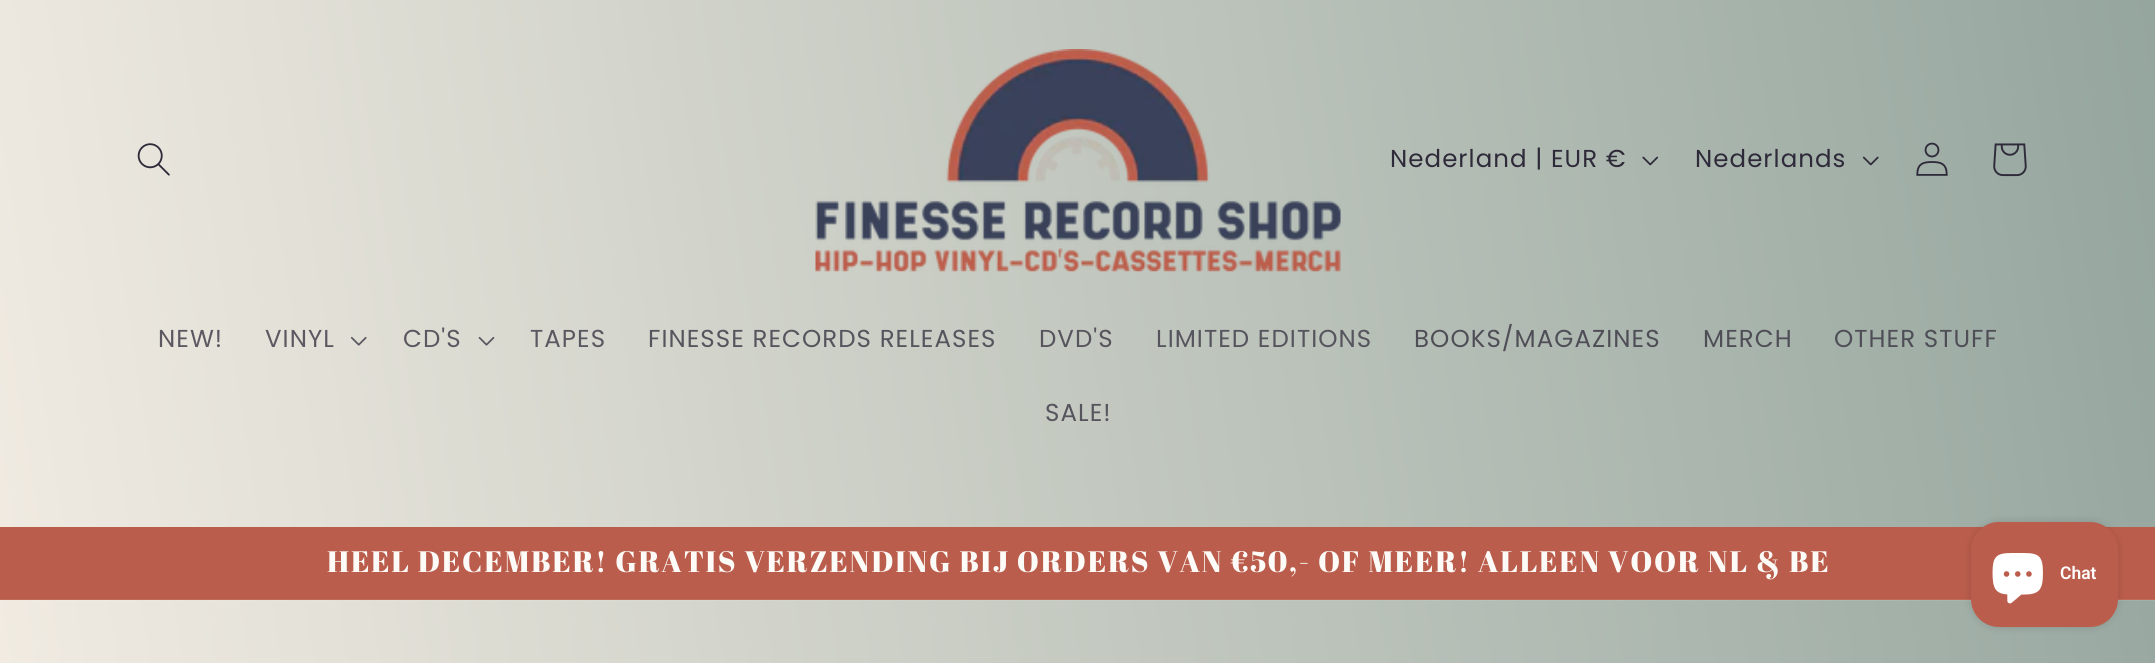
#include <cairo.h>
#include <math.h>
#include <stddef.h>


static void rgb(cairo_t *cr, int r, int g, int b)
{
	cairo_set_source_rgb(cr, r / 255.0, g / 255.0, b / 255.0);
}

static void face(cairo_t *cr, const char *family, double size, int italic, int bold)
{
	cairo_select_font_face(cr, family, italic ? CAIRO_FONT_SLANT_ITALIC : CAIRO_FONT_SLANT_NORMAL,
		bold ? CAIRO_FONT_WEIGHT_BOLD : CAIRO_FONT_WEIGHT_NORMAL);
	cairo_set_font_size(cr, size);
}

static void label(cairo_t *cr, double x, double y, const char *s)
{
	cairo_move_to(cr, x, y);
	cairo_show_text(cr, s);
}

static void tracked(cairo_t *cr, double x, double y, const char *s, double letter, double word)
{
	cairo_move_to(cr, x, y);
	while (*s) {
		char ch[5] = {0};
		int n = 0;
		do ch[n++] = *s++; while ((*s & 0xC0) == 0x80);
		cairo_show_text(cr, ch);
		cairo_rel_move_to(cr, letter + word * (*ch == ' '), 0);
	}
}

static void rect(cairo_t *cr, double x, double y, double w, double h)
{
	cairo_rectangle(cr, x, y, w, h);
	cairo_fill(cr);
}

static void rrect(cairo_t *cr, double x, double y, double w, double h, double r)
{
	cairo_new_sub_path(cr);
	cairo_arc(cr, x + w - r, y + h - r, r, 0, M_PI / 2);
	cairo_arc(cr, x + r, y + h - r, r, M_PI / 2, M_PI);
	cairo_arc(cr, x + r, y + r, r, M_PI, 1.5 * M_PI);
	cairo_arc(cr, x + w - r, y + r, r, 1.5 * M_PI, 2 * M_PI);
	cairo_close_path(cr);
}

static void soft_shadow(cairo_t *cr, double x, double y, double w, double h, double r, double blur, double alpha)
{
	cairo_push_group_with_content(cr, CAIRO_CONTENT_ALPHA);
	cairo_set_operator(cr, CAIRO_OPERATOR_SOURCE);
	for (int i = 15; i >= -15 && fmin(w, h) + blur * i / 3 > 0; i -= 2) {
		double e = blur * i / 6;
		cairo_set_source_rgba(cr, 0, 0, 0, alpha * erfc((i - 1) / 8.5) / 2);
		rrect(cr, x - e, y - e, w + 2 * e, h + 2 * e, fmax(0, fmin(r + e + blur * .6, fmin(w, h) / 2 + e)));
		cairo_fill(cr);
	}
	cairo_pattern_t *soft = cairo_pop_group(cr);
	cairo_mask(cr, soft);
	cairo_pattern_destroy(soft);
}

static void image(cairo_t *cr, const char *path, double x, double y, double w, double h)
{
	cairo_surface_t *image = cairo_image_surface_create_from_png(path);
	cairo_save(cr);
	cairo_set_source_surface(cr, image, x, y);
	cairo_rectangle(cr, x, y, w, h);
	cairo_fill(cr);
	cairo_restore(cr);
	cairo_surface_destroy(image);
}

static void draw(cairo_t *cr) {
	cairo_pattern_t *gradient;
	rgb(cr, 255, 255, 255);
	cairo_paint(cr);
	gradient = cairo_pattern_create_linear(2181, 157, -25, 506);
	cairo_pattern_add_color_stop_rgba(gradient, 0, 0.584, 0.651, 0.62, 1);
	cairo_pattern_add_color_stop_rgba(gradient, 1, 0.945, 0.922, 0.886, 1);
	cairo_set_source(cr, gradient);
	cairo_pattern_destroy(gradient);
	rect(cr, 0, 0, 2155, 663);
	gradient = cairo_pattern_create_linear(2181, 157, -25, 506);
	cairo_pattern_add_color_stop_rgba(gradient, 0, 0.616, 0.678, 0.647, 1);
	cairo_pattern_add_color_stop_rgba(gradient, 1, 0.949, 0.925, 0.894, 1);
	cairo_set_source(cr, gradient);
	cairo_pattern_destroy(gradient);
	rect(cr, 0, 600, 2155, 1);
	image(cr, "image0.png", 137, 143, 33, 33);
	image(cr, "image1.png", 815, 49, 526, 223);
	face(cr, "Poppins", 24.5, 0, 0);
	rgb(cr, 46, 42, 57);
	tracked(cr, 1390, 167, "Nederland | EUR €", 1.05, 0);
	image(cr, "image2.png", 1642, 156, 17, 10);
	tracked(cr, 1695, 167, "Nederlands", 1.05, 0);
	image(cr, "image3.png", 1862, 156, 17, 10);
	image(cr, "image4.png", 1916, 142, 32, 34);
	image(cr, "image5.png", 1993, 143, 34, 34);
	rgb(cr, 92, 88, 97);
	tracked(cr, 158, 347, "NEW!", 1.05, 0);
	tracked(cr, 265, 347, "VINYL", 1.05, 0);
	image(cr, "image6.png", 350, 336, 17, 10);
	tracked(cr, 403, 347, "CD'S", 1.05, 0);
	image(cr, "image7.png", 478, 336, 17, 10);
	tracked(cr, 530, 347, "TAPES", 1.05, 0);
	rgb(cr, 86, 84, 93);
	tracked(cr, 648, 347, "FINESSE RECORDS RELEASES", 1.05, 0);
	tracked(cr, 1039, 347, "DVD'S", 1.05, 0);
	tracked(cr, 1156, 347, "LIMITED EDITIONS", 1.05, 0);
	rgb(cr, 79, 78, 87);
	tracked(cr, 1414, 347, "BOOKS/MAGAZINES", 1.05, 0);
	tracked(cr, 1703, 347, "MERCH", 1.05, 0);
	tracked(cr, 1834, 347, "OTHER STUFF", 1.05, 0);
	rgb(cr, 86, 84, 93);
	tracked(cr, 1045, 421, "SALE!", 1.05, 0);
	rgb(cr, 187, 93, 76);
	rect(cr, 0, 527, 2155, 72);
	rgb(cr, 192, 106, 90);
	rect(cr, 0, 599, 2155, 1);
	face(cr, "Abril Fatface", 29.57, 0, 0);
	rgb(cr, 253, 251, 247);
	tracked(cr, 327, 572, "HEEL DECEMBER! GRATIS VERZENDING BIJ ORDERS VAN €50,- OF MEER! ALLEEN VOOR NL & BE", 1.75, 0);
	rgb(cr, 0, 0, 0);
	soft_shadow(cr, 1971, 522, 147, 105, 28, 4.5, 0.15);
	rgb(cr, 187, 93, 76);
	rrect(cr, 1971, 522, 147, 105, 28);
	cairo_fill(cr);
	image(cr, "image8.png", 1992, 553, 51, 51);
	face(cr, "Roboto SemiBold", 17.5, 0, 0);
	rgb(cr, 255, 255, 255);
	label(cr, 2060, 579, "Chat");
}

int main(void) {
	cairo_surface_t *surface = cairo_image_surface_create(CAIRO_FORMAT_RGB24, 2155, 663);
	cairo_t *cr = cairo_create(surface);
	cairo_font_options_t *options = cairo_font_options_create();
	cairo_font_options_set_hint_metrics(options, CAIRO_HINT_METRICS_OFF);
	cairo_font_options_set_hint_style(options, CAIRO_HINT_STYLE_NONE);
	cairo_set_font_options(cr, options);
	cairo_set_miter_limit(cr, 4);
	draw(cr);
	cairo_surface_write_to_png(surface, "render.png");
	cairo_font_options_destroy(options);
	cairo_destroy(cr);
	cairo_surface_destroy(surface);
	return 0;
}
